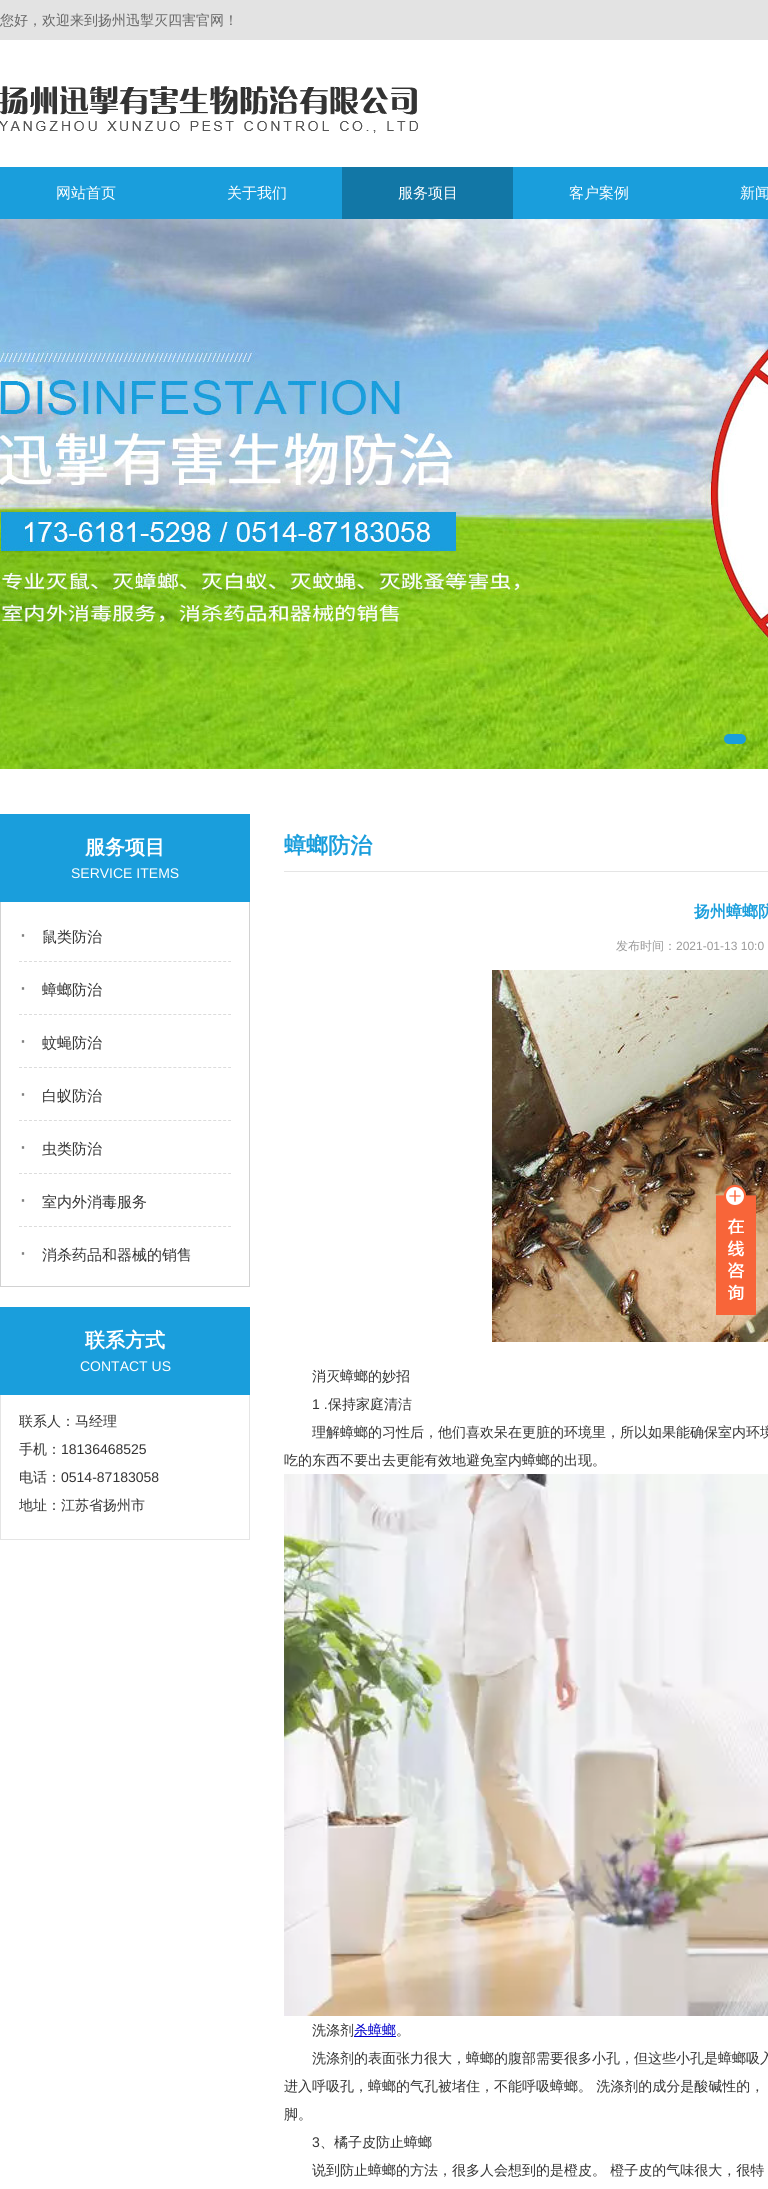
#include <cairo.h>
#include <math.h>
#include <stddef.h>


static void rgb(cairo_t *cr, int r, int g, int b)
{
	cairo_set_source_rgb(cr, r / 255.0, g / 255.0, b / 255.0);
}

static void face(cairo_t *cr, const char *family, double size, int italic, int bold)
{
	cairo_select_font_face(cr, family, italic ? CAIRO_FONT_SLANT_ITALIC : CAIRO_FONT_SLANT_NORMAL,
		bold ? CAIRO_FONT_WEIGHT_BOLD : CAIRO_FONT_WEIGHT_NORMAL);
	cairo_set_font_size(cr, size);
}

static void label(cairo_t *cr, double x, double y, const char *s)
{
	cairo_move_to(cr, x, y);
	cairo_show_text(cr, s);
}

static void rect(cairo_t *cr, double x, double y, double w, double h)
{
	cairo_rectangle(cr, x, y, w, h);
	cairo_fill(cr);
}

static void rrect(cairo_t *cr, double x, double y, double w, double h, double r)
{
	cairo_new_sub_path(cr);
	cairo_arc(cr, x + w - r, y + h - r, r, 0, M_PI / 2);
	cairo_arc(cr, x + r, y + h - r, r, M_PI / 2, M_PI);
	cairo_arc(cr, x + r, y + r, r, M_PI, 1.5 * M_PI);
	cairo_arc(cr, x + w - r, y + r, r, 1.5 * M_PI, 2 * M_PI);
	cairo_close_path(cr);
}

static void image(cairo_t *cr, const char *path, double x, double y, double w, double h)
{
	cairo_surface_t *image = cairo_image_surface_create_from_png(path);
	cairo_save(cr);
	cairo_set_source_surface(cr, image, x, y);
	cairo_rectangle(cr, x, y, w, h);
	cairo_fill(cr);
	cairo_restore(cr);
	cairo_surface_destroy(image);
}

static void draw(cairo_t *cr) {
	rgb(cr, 255, 255, 255);
	cairo_paint(cr);
	rgb(cr, 227, 227, 227);
	rect(cr, 0, 0, 768, 40);
	face(cr, "WenQuanYi Zen Hei Medium", 14, 0, 0);
	rgb(cr, 102, 102, 102);
	label(cr, 0, 25, "您好，欢迎来到扬州迅掣灭四害官网！");
	image(cr, "image0.png", 0, 86, 418, 47);
	rgb(cr, 26, 158, 220);
	rect(cr, 0, 167, 768, 52);
	face(cr, "WenQuanYi Zen Hei Medium", 15, 0, 0);
	rgb(cr, 255, 255, 255);
	label(cr, 56, 198, "网站首页");
	label(cr, 227, 198, "关于我们");
	rgb(cr, 18, 119, 166);
	rect(cr, 342, 167, 171, 52);
	rgb(cr, 255, 255, 255);
	label(cr, 398, 198, "服务项目");
	label(cr, 569, 198, "客户案例");
	label(cr, 740, 198, "新闻");
	image(cr, "image1.png", 0, 219, 768, 550);
	rgb(cr, 26, 158, 220);
	rrect(cr, 724, 734, 22, 10, 5);
	cairo_fill(cr);
	rect(cr, 0, 814, 250, 88);
	face(cr, "WenQuanYi Zen Hei", 20, 0, 1);
	rgb(cr, 255, 255, 255);
	label(cr, 85, 854, "服务项目");
	face(cr, "Liberation Sans", 14, 0, 0);
	label(cr, 71, 878, "SERVICE ITEMS");
	rgb(cr, 210, 210, 210);
	rect(cr, 249, 902, 1, 385);
	rect(cr, 0, 1286, 250, 1);
	rect(cr, 0, 902, 1, 385);
	cairo_new_path(cr);
	cairo_move_to(cr, 19, 961.5);
	cairo_line_to(cr, 231, 961.5);
	rgb(cr, 220, 220, 220);
	cairo_set_line_width(cr, 1);
	cairo_set_dash(cr, (double[]){3, 1.98}, 2, 0);
	cairo_stroke(cr);
	face(cr, "Liberation Sans", 24, 0, 0);
	rgb(cr, 128, 128, 128);
	label(cr, 19, 942, "·");
	face(cr, "WenQuanYi Zen Hei Medium", 15, 0, 0);
	rgb(cr, 51, 51, 51);
	label(cr, 42, 942, "鼠类防治");
	cairo_new_path(cr);
	cairo_move_to(cr, 19, 1014.5);
	cairo_line_to(cr, 231, 1014.5);
	rgb(cr, 220, 220, 220);
	cairo_stroke(cr);
	face(cr, "Liberation Sans", 24, 0, 0);
	rgb(cr, 128, 128, 128);
	label(cr, 19, 995, "·");
	face(cr, "WenQuanYi Zen Hei Medium", 15, 0, 0);
	rgb(cr, 51, 51, 51);
	label(cr, 42, 995, "蟑螂防治");
	cairo_new_path(cr);
	cairo_move_to(cr, 19, 1067.5);
	cairo_line_to(cr, 231, 1067.5);
	rgb(cr, 220, 220, 220);
	cairo_stroke(cr);
	face(cr, "Liberation Sans", 24, 0, 0);
	rgb(cr, 128, 128, 128);
	label(cr, 19, 1048, "·");
	face(cr, "WenQuanYi Zen Hei Medium", 15, 0, 0);
	rgb(cr, 51, 51, 51);
	label(cr, 42, 1048, "蚊蝇防治");
	cairo_new_path(cr);
	cairo_move_to(cr, 19, 1120.5);
	cairo_line_to(cr, 231, 1120.5);
	rgb(cr, 220, 220, 220);
	cairo_stroke(cr);
	face(cr, "Liberation Sans", 24, 0, 0);
	rgb(cr, 128, 128, 128);
	label(cr, 19, 1101, "·");
	face(cr, "WenQuanYi Zen Hei Medium", 15, 0, 0);
	rgb(cr, 51, 51, 51);
	label(cr, 42, 1101, "白蚁防治");
	cairo_new_path(cr);
	cairo_move_to(cr, 19, 1173.5);
	cairo_line_to(cr, 231, 1173.5);
	rgb(cr, 220, 220, 220);
	cairo_stroke(cr);
	face(cr, "Liberation Sans", 24, 0, 0);
	rgb(cr, 128, 128, 128);
	label(cr, 19, 1154, "·");
	face(cr, "WenQuanYi Zen Hei Medium", 15, 0, 0);
	rgb(cr, 51, 51, 51);
	label(cr, 42, 1154, "虫类防治");
	cairo_new_path(cr);
	cairo_move_to(cr, 19, 1226.5);
	cairo_line_to(cr, 231, 1226.5);
	rgb(cr, 220, 220, 220);
	cairo_stroke(cr);
	face(cr, "Liberation Sans", 24, 0, 0);
	rgb(cr, 128, 128, 128);
	label(cr, 19, 1207, "·");
	face(cr, "WenQuanYi Zen Hei Medium", 15, 0, 0);
	rgb(cr, 51, 51, 51);
	label(cr, 42, 1207, "室内外消毒服务");
	face(cr, "Liberation Sans", 24, 0, 0);
	rgb(cr, 128, 128, 128);
	label(cr, 19, 1260, "·");
	face(cr, "WenQuanYi Zen Hei Medium", 15, 0, 0);
	rgb(cr, 51, 51, 51);
	label(cr, 42, 1260, "消杀药品和器械的销售");
	rgb(cr, 26, 158, 220);
	rect(cr, 0, 1307, 250, 88);
	face(cr, "WenQuanYi Zen Hei", 20, 0, 1);
	rgb(cr, 255, 255, 255);
	label(cr, 85, 1347, "联系方式");
	face(cr, "Liberation Sans", 14, 0, 0);
	label(cr, 80, 1371, "CONTACT US");
	rgb(cr, 229, 229, 229);
	rect(cr, 249, 1395, 1, 145);
	rect(cr, 0, 1539, 250, 1);
	rect(cr, 0, 1395, 1, 145);
	face(cr, "WenQuanYi Zen Hei Medium", 14, 0, 0);
	rgb(cr, 51, 51, 51);
	label(cr, 19, 1426, "联系人：马经理");
	label(cr, 19, 1454, "手机：");
	face(cr, "Liberation Sans", 14, 0, 0);
	label(cr, 61, 1454, "18136468525");
	face(cr, "WenQuanYi Zen Hei Medium", 14, 0, 0);
	label(cr, 19, 1482, "电话：");
	face(cr, "Liberation Sans", 14, 0, 0);
	label(cr, 61, 1482, "0514-87183058");
	face(cr, "WenQuanYi Zen Hei Medium", 14, 0, 0);
	label(cr, 19, 1510, "地址：江苏省扬州市");
	rgb(cr, 229, 229, 229);
	rect(cr, 284, 871, 484, 1);
	face(cr, "WenQuanYi Zen Hei", 22, 0, 1);
	rgb(cr, 26, 158, 220);
	label(cr, 284, 853, "蟑螂防治");
	face(cr, "WenQuanYi Zen Hei", 16, 0, 1);
	label(cr, 694, 917, "扬州蟑螂防");
	face(cr, "WenQuanYi Zen Hei Medium", 12, 0, 0);
	rgb(cr, 153, 153, 153);
	label(cr, 616, 950, "发布时间：");
	face(cr, "Liberation Sans", 12, 0, 0);
	label(cr, 676, 950, "2021-01-13 10:0");
	image(cr, "image2.png", 492, 970, 276, 372);
	face(cr, "WenQuanYi Zen Hei Medium", 14, 0, 0);
	rgb(cr, 51, 51, 51);
	label(cr, 312, 1381, "消灭蟑螂的妙招");
	face(cr, "Liberation Sans", 14, 0, 0);
	label(cr, 312, 1409, "1 .");
	face(cr, "WenQuanYi Zen Hei Medium", 14, 0, 0);
	label(cr, 328, 1409, "保持家庭清洁");
	label(cr, 312, 1437, "理解蟑螂的习性后，他们喜欢呆在更脏的环境里，所以如果能确保室内环境");
	label(cr, 284, 1465, "吃的东西不要出去更能有效地避免室内蟑螂的出现。");
	image(cr, "image3.png", 284, 1474, 484, 542);
	label(cr, 312, 2035, "洗涤剂");
	rgb(cr, 0, 0, 204);
	rect(cr, 354, 2036, 42, 1);
	label(cr, 354, 2035, "杀蟑螂");
	rgb(cr, 51, 51, 51);
	label(cr, 396, 2035, "。");
	label(cr, 312, 2063, "洗涤剂的表面张力很大，蟑螂的腹部需要很多小孔，但这些小孔是蟑螂吸入");
	label(cr, 284, 2091, "进入呼吸孔，蟑螂的气孔被堵住，不能呼吸蟑螂。 洗涤剂的成分是酸碱性的，");
	label(cr, 284, 2119, "脚。");
	face(cr, "Liberation Sans", 14, 0, 0);
	label(cr, 312, 2147, "3");
	face(cr, "WenQuanYi Zen Hei Medium", 14, 0, 0);
	label(cr, 320, 2147, "、橘子皮防止蟑螂");
	label(cr, 312, 2175, "说到防止蟑螂的方法，很多人会想到的是橙皮。 橙子皮的气味很大，很特");
	image(cr, "image4.png", 716, 1184, 40, 131);
}

int main(void) {
	cairo_surface_t *surface = cairo_image_surface_create(CAIRO_FORMAT_RGB24, 768, 2189);
	cairo_t *cr = cairo_create(surface);
	cairo_font_options_t *options = cairo_font_options_create();
	cairo_font_options_set_hint_metrics(options, CAIRO_HINT_METRICS_OFF);
	cairo_font_options_set_hint_style(options, CAIRO_HINT_STYLE_NONE);
	cairo_set_font_options(cr, options);
	cairo_set_miter_limit(cr, 4);
	draw(cr);
	cairo_surface_write_to_png(surface, "render.png");
	cairo_font_options_destroy(options);
	cairo_destroy(cr);
	cairo_surface_destroy(surface);
	return 0;
}
